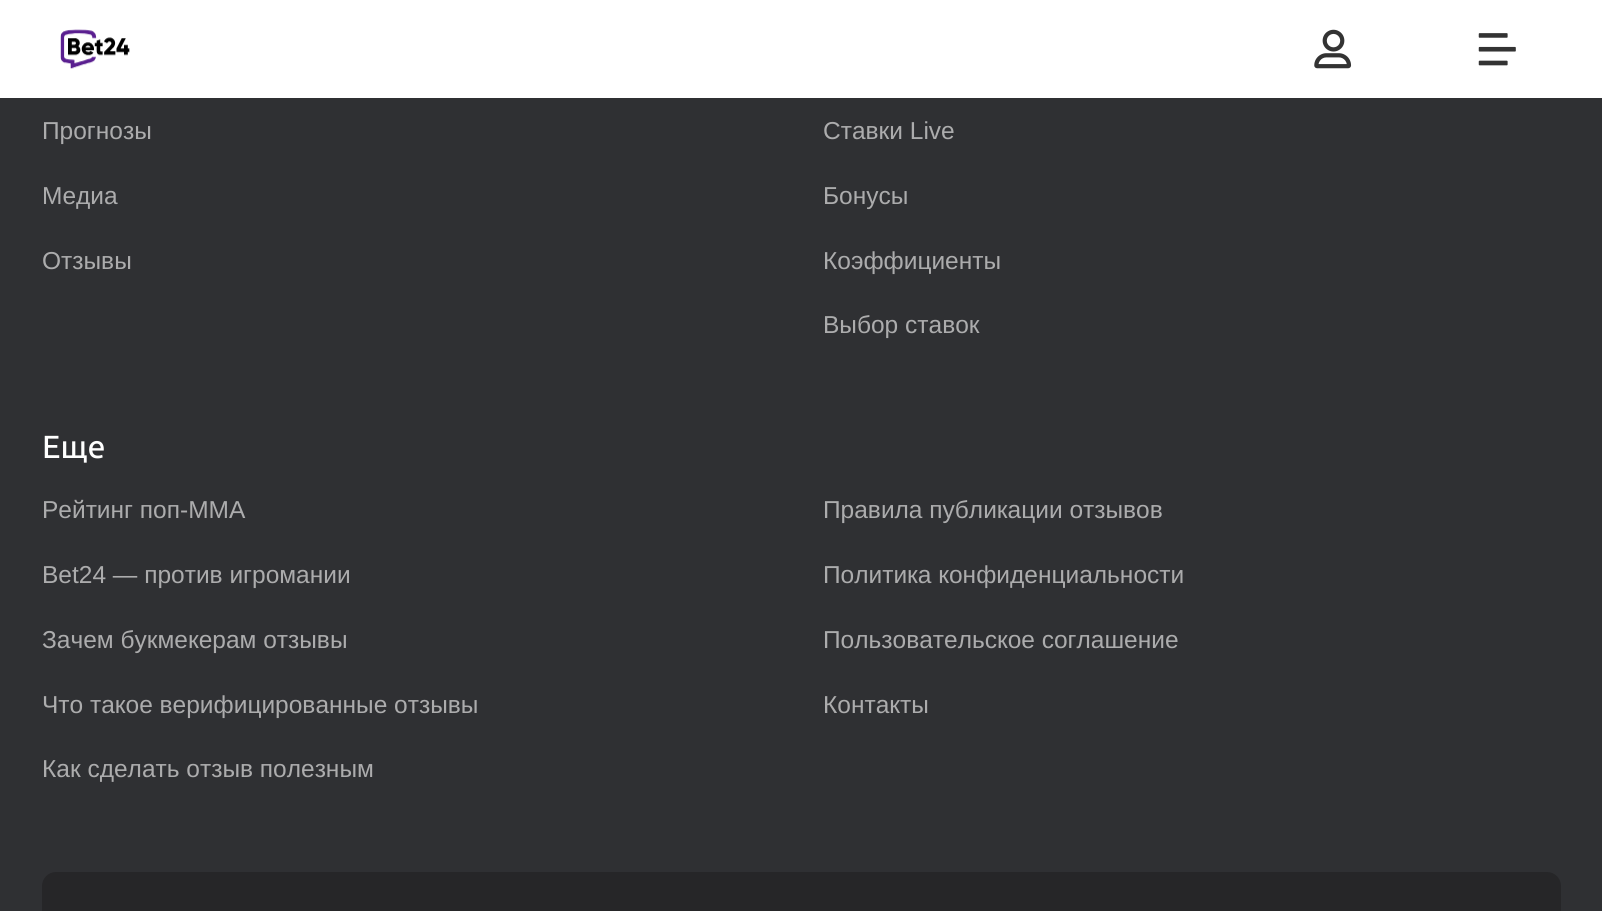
#include <cairo.h>
#include <math.h>
#include <stddef.h>


static void rgb(cairo_t *cr, int r, int g, int b)
{
	cairo_set_source_rgb(cr, r / 255.0, g / 255.0, b / 255.0);
}

static void face(cairo_t *cr, const char *family, double size, int italic, int bold)
{
	cairo_select_font_face(cr, family, italic ? CAIRO_FONT_SLANT_ITALIC : CAIRO_FONT_SLANT_NORMAL,
		bold ? CAIRO_FONT_WEIGHT_BOLD : CAIRO_FONT_WEIGHT_NORMAL);
	cairo_set_font_size(cr, size);
}

static void label(cairo_t *cr, double x, double y, const char *s)
{
	cairo_move_to(cr, x, y);
	cairo_show_text(cr, s);
}

static void rect(cairo_t *cr, double x, double y, double w, double h)
{
	cairo_rectangle(cr, x, y, w, h);
	cairo_fill(cr);
}

static void rrect(cairo_t *cr, double x, double y, double w, double h, double r)
{
	cairo_new_sub_path(cr);
	cairo_arc(cr, x + w - r, y + h - r, r, 0, M_PI / 2);
	cairo_arc(cr, x + r, y + h - r, r, M_PI / 2, M_PI);
	cairo_arc(cr, x + r, y + r, r, M_PI, 1.5 * M_PI);
	cairo_arc(cr, x + w - r, y + r, r, 1.5 * M_PI, 2 * M_PI);
	cairo_close_path(cr);
}

static void image(cairo_t *cr, const char *path, double x, double y, double w, double h)
{
	cairo_surface_t *image = cairo_image_surface_create_from_png(path);
	cairo_save(cr);
	cairo_set_source_surface(cr, image, x, y);
	cairo_rectangle(cr, x, y, w, h);
	cairo_fill(cr);
	cairo_restore(cr);
	cairo_surface_destroy(image);
}

static void draw(cairo_t *cr) {
	rgb(cr, 47, 48, 51);
	cairo_paint(cr);
	rgb(cr, 255, 255, 255);
	rect(cr, 0, 0, 1602, 98);
	image(cr, "image0.png", 60, 29, 70, 40);
	image(cr, "image1.png", 1314, 29, 38, 40);
	image(cr, "image2.png", 1478, 33, 38, 33);
	face(cr, "Liberation Sans", 24.5, 0, 0);
	rgb(cr, 172, 172, 173);
	label(cr, 42, 139, "Прогнозы");
	label(cr, 42, 204, "Медиа");
	label(cr, 42, 269, "Отзывы");
	label(cr, 823, 139, "Ставки Live");
	label(cr, 823, 204, "Бонусы");
	label(cr, 823, 269, "Коэффициенты");
	label(cr, 823, 333, "Выбор ставок");
	face(cr, "Ubuntu Medium", 32, 0, 0);
	rgb(cr, 255, 255, 255);
	label(cr, 42, 458, "Еще");
	face(cr, "Liberation Sans", 24.5, 0, 0);
	rgb(cr, 172, 172, 173);
	label(cr, 42, 518, "Рейтинг поп-ММА");
	label(cr, 42, 583, "Bet24 — против игромании");
	label(cr, 42, 648, "Зачем букмекерам отзывы");
	label(cr, 42, 713, "Что такое верифицированные отзывы");
	label(cr, 42, 777, "Как сделать отзыв полезным");
	label(cr, 823, 518, "Правила публикации отзывов");
	label(cr, 823, 583, "Политика конфиденциальности");
	label(cr, 823, 648, "Пользовательское соглашение");
	label(cr, 823, 713, "Контакты");
	rgb(cr, 38, 38, 40);
	rrect(cr, 42, 872, 1519, 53, 14);
	cairo_fill(cr);
}

int main(void) {
	cairo_surface_t *surface = cairo_image_surface_create(CAIRO_FORMAT_RGB24, 1602, 911);
	cairo_t *cr = cairo_create(surface);
	cairo_font_options_t *options = cairo_font_options_create();
	cairo_font_options_set_hint_metrics(options, CAIRO_HINT_METRICS_OFF);
	cairo_font_options_set_hint_style(options, CAIRO_HINT_STYLE_NONE);
	cairo_set_font_options(cr, options);
	cairo_set_miter_limit(cr, 4);
	draw(cr);
	cairo_surface_write_to_png(surface, "render.png");
	cairo_font_options_destroy(options);
	cairo_destroy(cr);
	cairo_surface_destroy(surface);
	return 0;
}
